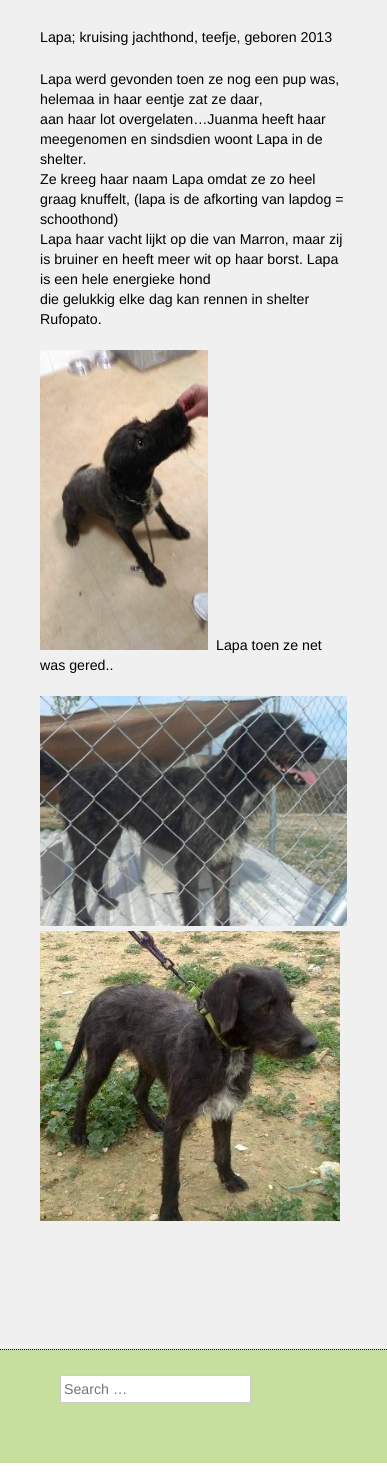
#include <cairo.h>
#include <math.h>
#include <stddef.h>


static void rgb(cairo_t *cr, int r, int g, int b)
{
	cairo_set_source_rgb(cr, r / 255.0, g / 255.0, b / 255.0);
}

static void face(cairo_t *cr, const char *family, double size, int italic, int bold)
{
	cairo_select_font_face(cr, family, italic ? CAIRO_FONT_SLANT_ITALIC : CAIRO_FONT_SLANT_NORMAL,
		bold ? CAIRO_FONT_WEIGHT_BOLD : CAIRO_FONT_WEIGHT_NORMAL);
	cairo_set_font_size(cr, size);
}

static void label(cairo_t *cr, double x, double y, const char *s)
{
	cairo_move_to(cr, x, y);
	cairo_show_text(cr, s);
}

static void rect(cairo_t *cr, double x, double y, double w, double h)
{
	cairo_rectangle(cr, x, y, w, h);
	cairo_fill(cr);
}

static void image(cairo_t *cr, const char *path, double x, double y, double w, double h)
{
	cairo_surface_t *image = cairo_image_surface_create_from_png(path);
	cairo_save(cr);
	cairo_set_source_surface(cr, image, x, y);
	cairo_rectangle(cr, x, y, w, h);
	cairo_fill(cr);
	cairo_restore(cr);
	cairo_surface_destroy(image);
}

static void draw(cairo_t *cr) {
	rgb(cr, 255, 255, 255);
	cairo_paint(cr);
	rgb(cr, 240, 240, 240);
	rect(cr, 0, 0, 387, 1349);
	face(cr, "Liberation Sans", 14.2, 0, 0);
	rgb(cr, 0, 0, 0);
	label(cr, 40, 42, "Lapa; kruising jachthond, teefje, geboren 2013");
	label(cr, 40, 84, "Lapa werd gevonden toen ze nog een pup was,");
	label(cr, 40, 104, "helemaa in haar eentje zat ze daar,");
	label(cr, 40, 124, "aan haar lot overgelaten…Juanma heeft haar");
	label(cr, 40, 144, "meegenomen en sindsdien woont Lapa in de");
	label(cr, 40, 164, "shelter.");
	label(cr, 40, 184, "Ze kreeg haar naam Lapa omdat ze zo heel");
	label(cr, 40, 204, "graag knuffelt, (lapa is de afkorting van lapdog =");
	label(cr, 40, 224, "schoothond)");
	label(cr, 40, 244, "Lapa haar vacht lijkt op die van Marron, maar zij");
	label(cr, 40, 264, "is bruiner en heeft meer wit op haar borst. Lapa");
	label(cr, 40, 284, "is een hele energieke hond");
	label(cr, 40, 304, "die gelukkig elke dag kan rennen in shelter");
	label(cr, 40, 324, "Rufopato.");
	image(cr, "image0.png", 40, 350, 168, 300);
	label(cr, 216, 650, "Lapa toen ze net");
	label(cr, 40, 670, "was gered..");
	image(cr, "image1.png", 40, 696, 307, 230);
	image(cr, "image2.png", 40, 931, 300, 290);
	rgb(cr, 198, 223, 156);
	rect(cr, 0, 1349, 387, 114);
	cairo_new_path(cr);
	cairo_move_to(cr, 0, 1349.5);
	cairo_line_to(cr, 387, 1349.5);
	rgb(cr, 0, 0, 0);
	cairo_set_line_width(cr, 1);
	cairo_set_dash(cr, (double[]){1, 1}, 2, 0);
	cairo_stroke(cr);
	rgb(cr, 255, 255, 255);
	cairo_rectangle(cr, 60.5, 1375.5, 190, 27);
	cairo_fill_preserve(cr);
	rgb(cr, 204, 204, 204);
	cairo_set_dash(cr, NULL, 0, 0);
	cairo_stroke(cr);
	rgb(cr, 117, 117, 117);
	label(cr, 64, 1394, "Search …");
}

int main(void) {
	cairo_surface_t *surface = cairo_image_surface_create(CAIRO_FORMAT_RGB24, 387, 1474);
	cairo_t *cr = cairo_create(surface);
	cairo_font_options_t *options = cairo_font_options_create();
	cairo_font_options_set_hint_metrics(options, CAIRO_HINT_METRICS_OFF);
	cairo_font_options_set_hint_style(options, CAIRO_HINT_STYLE_NONE);
	cairo_set_font_options(cr, options);
	cairo_set_miter_limit(cr, 4);
	draw(cr);
	cairo_surface_write_to_png(surface, "render.png");
	cairo_font_options_destroy(options);
	cairo_destroy(cr);
	cairo_surface_destroy(surface);
	return 0;
}
